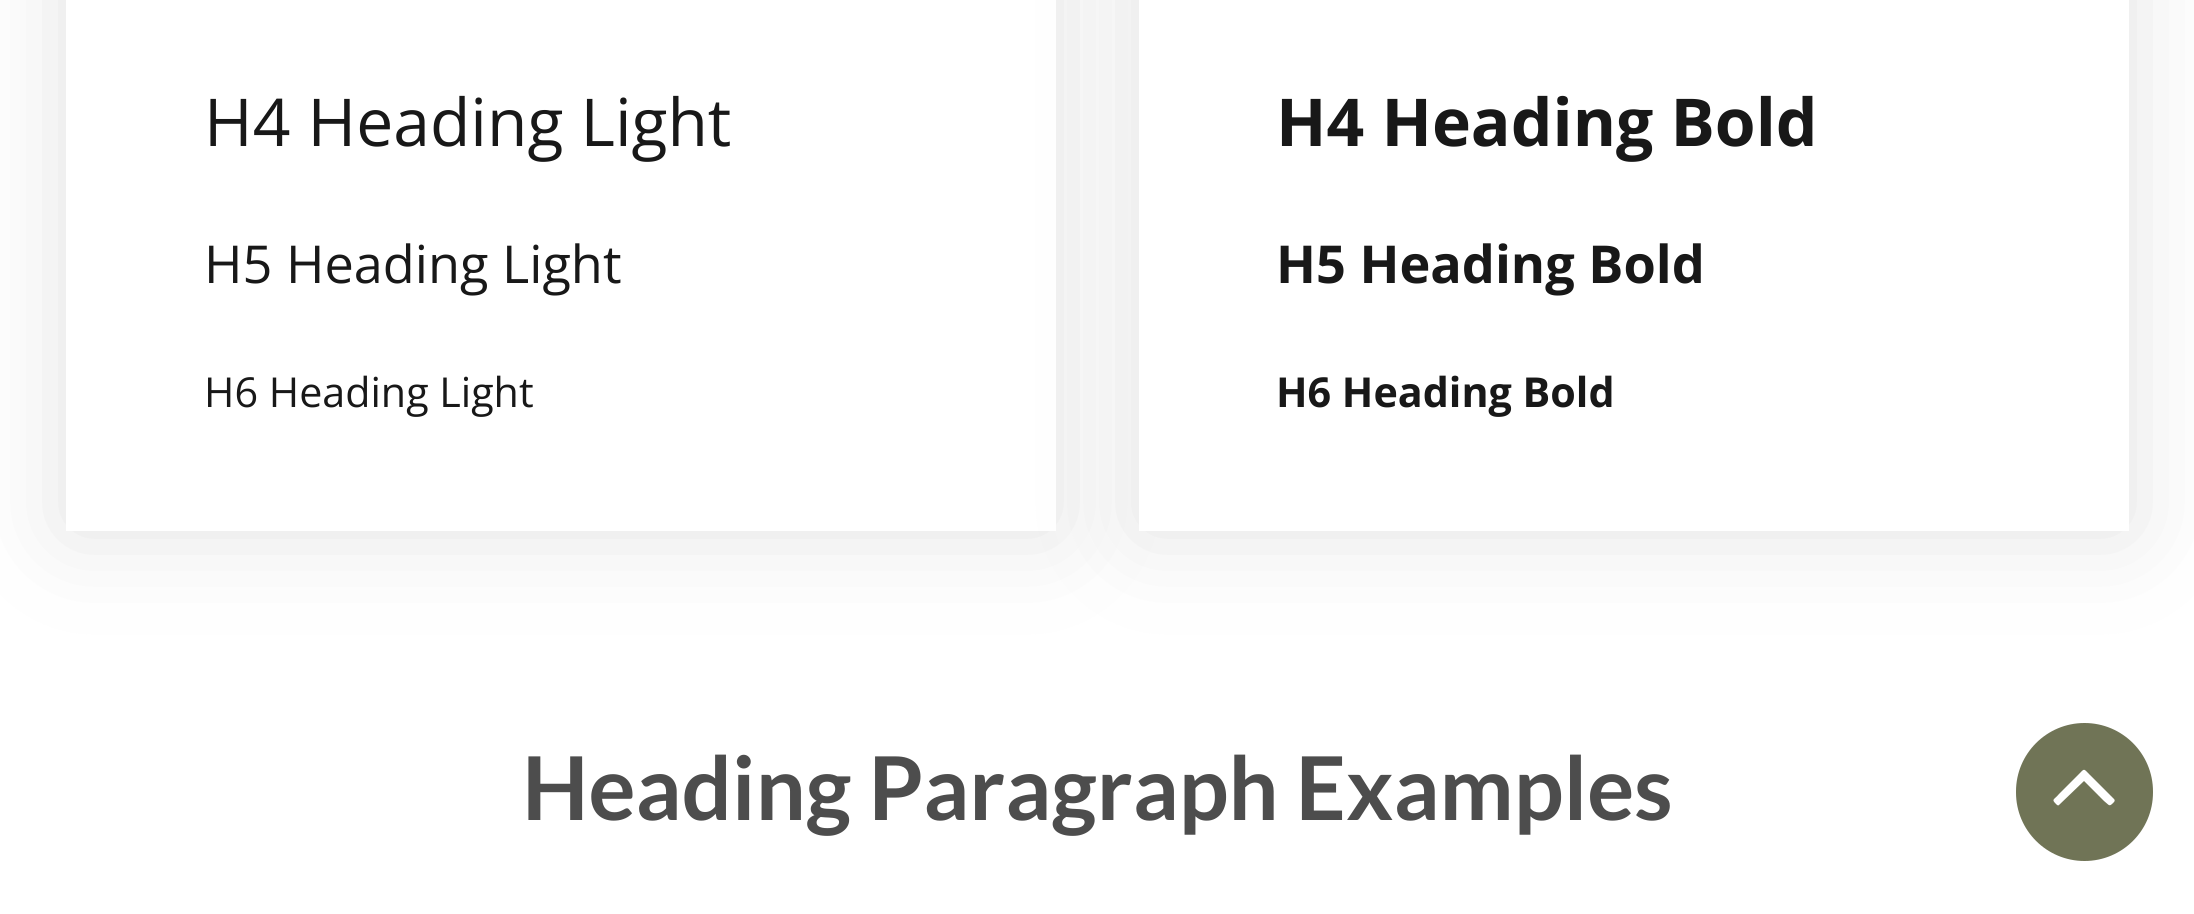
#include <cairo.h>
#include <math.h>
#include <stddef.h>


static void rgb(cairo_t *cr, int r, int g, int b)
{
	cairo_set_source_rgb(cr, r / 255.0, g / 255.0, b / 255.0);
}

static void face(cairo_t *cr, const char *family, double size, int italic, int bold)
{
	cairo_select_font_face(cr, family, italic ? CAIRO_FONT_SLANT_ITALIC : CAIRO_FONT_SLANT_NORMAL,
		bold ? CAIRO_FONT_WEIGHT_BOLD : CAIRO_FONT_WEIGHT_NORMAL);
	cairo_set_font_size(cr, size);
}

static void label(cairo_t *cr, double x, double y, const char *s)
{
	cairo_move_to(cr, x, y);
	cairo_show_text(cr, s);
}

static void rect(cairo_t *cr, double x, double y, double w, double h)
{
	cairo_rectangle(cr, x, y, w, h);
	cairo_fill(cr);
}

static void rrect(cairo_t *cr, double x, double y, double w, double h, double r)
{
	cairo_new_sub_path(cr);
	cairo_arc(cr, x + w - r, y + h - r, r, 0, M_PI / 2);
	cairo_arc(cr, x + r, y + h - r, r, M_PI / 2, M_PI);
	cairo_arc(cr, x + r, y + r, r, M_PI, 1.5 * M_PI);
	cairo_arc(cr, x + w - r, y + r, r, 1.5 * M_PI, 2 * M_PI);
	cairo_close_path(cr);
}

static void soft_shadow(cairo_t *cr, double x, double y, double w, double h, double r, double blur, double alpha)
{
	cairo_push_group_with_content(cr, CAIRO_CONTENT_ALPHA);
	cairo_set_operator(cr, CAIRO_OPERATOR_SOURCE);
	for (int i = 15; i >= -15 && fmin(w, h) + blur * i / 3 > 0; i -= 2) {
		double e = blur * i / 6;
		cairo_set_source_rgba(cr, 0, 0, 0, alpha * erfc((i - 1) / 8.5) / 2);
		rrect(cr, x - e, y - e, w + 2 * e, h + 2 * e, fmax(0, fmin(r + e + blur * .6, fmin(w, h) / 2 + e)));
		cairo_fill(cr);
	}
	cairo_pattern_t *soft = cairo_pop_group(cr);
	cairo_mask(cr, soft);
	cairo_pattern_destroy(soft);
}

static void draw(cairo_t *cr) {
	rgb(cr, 255, 255, 255);
	cairo_paint(cr);
	rgb(cr, 226, 226, 226);
	soft_shadow(cr, 66, -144, 990, 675, 0, 48, 1);
	rgb(cr, 255, 255, 255);
	rect(cr, 66, 0, 990, 531);
	face(cr, "Open Sans", 66, 0, 0);
	rgb(cr, 24, 24, 24);
	label(cr, 204, 146, "H4 Heading Light");
	face(cr, "Open Sans", 52.25, 0, 0);
	label(cr, 204, 283, "H5 Heading Light");
	face(cr, "Open Sans", 41.25, 0, 0);
	label(cr, 204, 407, "H6 Heading Light");
	rgb(cr, 226, 226, 226);
	soft_shadow(cr, 1139, -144, 990, 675, 0, 48, 1);
	rgb(cr, 255, 255, 255);
	rect(cr, 1139, 0, 990, 531);
	face(cr, "Open Sans", 66, 0, 1);
	rgb(cr, 24, 24, 24);
	label(cr, 1276, 146, "H4 Heading Bold");
	face(cr, "Open Sans", 52.25, 0, 1);
	label(cr, 1276, 283, "H5 Heading Bold");
	face(cr, "Open Sans", 41.25, 0, 1);
	label(cr, 1276, 407, "H6 Heading Bold");
	face(cr, "Lato", 88, 0, 1);
	rgb(cr, 77, 77, 77);
	label(cr, 522, 820, "Heading Paragraph Examples");
	rgb(cr, 112, 116, 86);
	rrect(cr, 2016, 723, 137, 138, 68.5);
	cairo_fill(cr);
	rgb(cr, 255, 255, 255);
	cairo_new_path(cr);
	cairo_move_to(cr, 2114, 799);
	cairo_curve_to(cr, 2116, 801, 2113, 803, 2112, 804);
	cairo_curve_to(cr, 2109, 807, 2108, 804, 2104, 801);
	cairo_line_to(cr, 2084, 781);
	cairo_line_to(cr, 2059, 805);
	cairo_curve_to(cr, 2058, 806, 2057, 805, 2056, 804);
	cairo_curve_to(cr, 2051, 799, 2054, 800, 2059, 794);
	cairo_line_to(cr, 2078, 775);
	cairo_curve_to(cr, 2085, 768, 2083, 768, 2090, 775);
	cairo_close_path(cr);
	cairo_fill(cr);
}

int main(void) {
	cairo_surface_t *surface = cairo_image_surface_create(CAIRO_FORMAT_RGB24, 2194, 914);
	cairo_t *cr = cairo_create(surface);
	cairo_font_options_t *options = cairo_font_options_create();
	cairo_font_options_set_hint_metrics(options, CAIRO_HINT_METRICS_OFF);
	cairo_font_options_set_hint_style(options, CAIRO_HINT_STYLE_NONE);
	cairo_set_font_options(cr, options);
	cairo_set_miter_limit(cr, 4);
	draw(cr);
	cairo_surface_write_to_png(surface, "render.png");
	cairo_font_options_destroy(options);
	cairo_destroy(cr);
	cairo_surface_destroy(surface);
	return 0;
}
